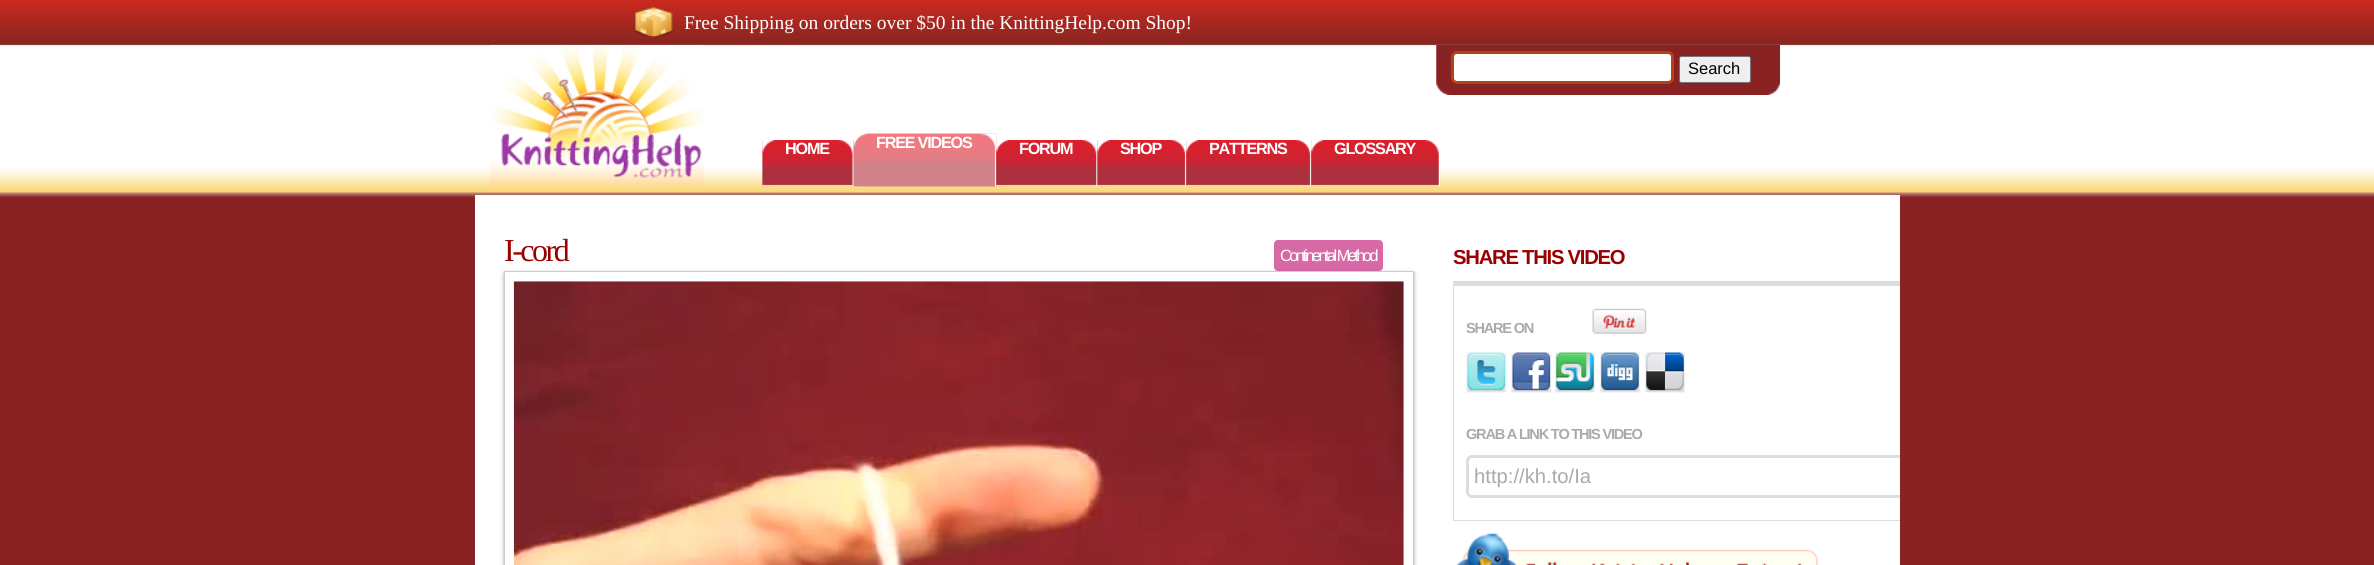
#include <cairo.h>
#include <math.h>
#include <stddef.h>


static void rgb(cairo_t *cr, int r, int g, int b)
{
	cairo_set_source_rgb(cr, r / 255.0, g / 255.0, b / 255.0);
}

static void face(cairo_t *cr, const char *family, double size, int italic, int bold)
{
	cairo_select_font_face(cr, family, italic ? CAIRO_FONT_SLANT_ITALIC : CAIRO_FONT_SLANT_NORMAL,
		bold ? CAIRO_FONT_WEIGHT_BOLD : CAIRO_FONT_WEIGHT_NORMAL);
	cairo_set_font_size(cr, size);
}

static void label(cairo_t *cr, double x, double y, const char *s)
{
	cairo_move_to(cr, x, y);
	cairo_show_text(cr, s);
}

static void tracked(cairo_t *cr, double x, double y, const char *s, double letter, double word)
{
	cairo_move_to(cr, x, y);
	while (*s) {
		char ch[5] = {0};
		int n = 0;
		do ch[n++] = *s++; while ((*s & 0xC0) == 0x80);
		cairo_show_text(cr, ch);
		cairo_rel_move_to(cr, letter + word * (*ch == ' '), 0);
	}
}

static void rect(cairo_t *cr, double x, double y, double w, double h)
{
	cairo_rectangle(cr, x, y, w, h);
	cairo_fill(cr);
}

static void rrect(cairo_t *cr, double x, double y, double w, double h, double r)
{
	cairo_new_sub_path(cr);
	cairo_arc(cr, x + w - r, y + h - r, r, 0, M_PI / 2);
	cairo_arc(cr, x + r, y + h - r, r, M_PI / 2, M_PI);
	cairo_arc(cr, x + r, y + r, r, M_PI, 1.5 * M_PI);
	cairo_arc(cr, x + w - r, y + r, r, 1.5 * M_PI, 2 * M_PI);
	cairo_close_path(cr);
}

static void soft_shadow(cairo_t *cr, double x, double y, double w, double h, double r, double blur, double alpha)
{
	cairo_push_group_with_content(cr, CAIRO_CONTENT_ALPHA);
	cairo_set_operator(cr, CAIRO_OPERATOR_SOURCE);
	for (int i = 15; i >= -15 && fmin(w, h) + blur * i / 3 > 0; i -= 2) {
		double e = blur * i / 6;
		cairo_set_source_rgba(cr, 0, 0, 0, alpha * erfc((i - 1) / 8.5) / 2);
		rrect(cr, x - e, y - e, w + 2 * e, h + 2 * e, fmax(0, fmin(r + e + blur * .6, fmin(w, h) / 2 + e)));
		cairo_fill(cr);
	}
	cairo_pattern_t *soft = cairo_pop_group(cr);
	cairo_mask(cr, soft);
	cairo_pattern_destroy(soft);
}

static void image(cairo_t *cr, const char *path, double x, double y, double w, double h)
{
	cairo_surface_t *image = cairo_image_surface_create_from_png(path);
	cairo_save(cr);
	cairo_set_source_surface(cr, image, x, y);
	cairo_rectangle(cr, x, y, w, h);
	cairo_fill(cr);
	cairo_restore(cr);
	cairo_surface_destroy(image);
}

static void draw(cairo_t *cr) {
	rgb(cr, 255, 255, 255);
	cairo_paint(cr);
	image(cr, "image0.png", 0, 0, 2374, 565);
	image(cr, "image1.png", 634, 6, 40, 31);
	face(cr, "Liberation Serif", 19.5, 0, 0);
	rgb(cr, 255, 255, 255);
	label(cr, 684, 29, "Free Shipping on orders over $50 in the KnittingHelp.com Shop!");
	image(cr, "image2.png", 490, 45, 214, 140);
	image(cr, "image3.png", 1436, 45, 344, 50);
	rrect(cr, 1452.5, 52.5, 220, 30, 4.5);
	cairo_fill_preserve(cr);
	rgb(cr, 179, 66, 20);
	cairo_set_line_width(cr, 3);
	cairo_stroke(cr);
	rgb(cr, 239, 239, 239);
	rrect(cr, 1679.5, 56.5, 71, 26, 2);
	cairo_fill_preserve(cr);
	rgb(cr, 118, 118, 118);
	cairo_set_line_width(cr, 1);
	cairo_stroke(cr);
	face(cr, "Liberation Sans", 16.5, 0, 0);
	rgb(cr, 0, 0, 0);
	label(cr, 1688, 74, "Search");
	image(cr, "image4.png", 762, 140, 92, 47);
	image(cr, "image5.png", 762, 140, 92, 47);
	image(cr, "image6.png", 775, 140, 79, 47);
	face(cr, "Liberation Sans", 16.25, 0, 1);
	rgb(cr, 255, 255, 255);
	tracked(cr, 785, 154, "HOME", -1.25, 0);
	image(cr, "image7.png", 853, 140, 144, 47);
	image(cr, "image8.png", 853, 133, 144, 54);
	image(cr, "image9.png", 866, 133, 131, 54);
	tracked(cr, 876, 148, "FREE VIDEOS", -1.25, 0);
	image(cr, "image10.png", 996, 140, 102, 47);
	image(cr, "image11.png", 996, 140, 102, 47);
	image(cr, "image12.png", 1008, 140, 90, 47);
	tracked(cr, 1019, 154, "FORUM", -1.25, 0);
	image(cr, "image13.png", 1097, 140, 90, 47);
	image(cr, "image14.png", 1097, 140, 90, 47);
	image(cr, "image15.png", 1110, 140, 77, 47);
	tracked(cr, 1120, 154, "SHOP", -1.25, 0);
	image(cr, "image16.png", 1186, 140, 126, 47);
	image(cr, "image17.png", 1186, 140, 126, 47);
	image(cr, "image18.png", 1198, 140, 114, 47);
	tracked(cr, 1209, 154, "PATTERNS", -1.25, 0);
	image(cr, "image19.png", 1311, 140, 129, 47);
	image(cr, "image20.png", 1311, 140, 129, 47);
	image(cr, "image21.png", 1323, 140, 117, 47);
	tracked(cr, 1334, 154, "GLOSSARY", -1.25, 0);
	rect(cr, 475, 195, 1425, 370);
	face(cr, "Liberation Serif", 32, 0, 0);
	rgb(cr, 153, 0, 0);
	tracked(cr, 504, 261, "I-cord", -2.5, 0);
	rgb(cr, 216, 105, 167);
	rrect(cr, 1274, 240, 109, 31, 4);
	cairo_fill(cr);
	face(cr, "Liberation Sans", 16.25, 0, 0);
	rgb(cr, 255, 255, 255);
	tracked(cr, 1280, 261, "Continental Method", -2.5, 0);
	rgb(cr, 34, 25, 25);
	soft_shadow(cr, 504, 273, 910, 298, 0, 2, 0.4);
	rgb(cr, 255, 255, 255);
	cairo_rectangle(cr, 504.5, 271.5, 909, 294);
	cairo_fill_preserve(cr);
	rgb(cr, 204, 204, 204);
	cairo_stroke(cr);
	image(cr, "image22.png", 513, 281, 891, 284);
	face(cr, "Liberation Sans", 20.25, 0, 1);
	rgb(cr, 153, 0, 0);
	tracked(cr, 1453, 264, "SHARE THIS VIDEO", -1.25, 0);
	rgb(cr, 221, 221, 221);
	rect(cr, 1453, 281, 447, 5);
	rect(cr, 1453, 520, 447, 1);
	rect(cr, 1453, 281, 1, 240);
	face(cr, "Liberation Sans", 14.6, 0, 1);
	rgb(cr, 170, 170, 170);
	tracked(cr, 1466, 333, "SHARE ON", -1.25, 0);
	image(cr, "image23.png", 1592, 308, 55, 26);
	image(cr, "image24.png", 1466, 352, 41, 41);
	image(cr, "image25.png", 1511, 352, 41, 41);
	image(cr, "image26.png", 1555, 352, 40, 41);
	image(cr, "image27.png", 1600, 352, 40, 41);
	image(cr, "image28.png", 1645, 352, 40, 41);
	tracked(cr, 1466, 439, "GRAB A LINK TO THIS VIDEO", -1.25, 0);
	cairo_save(cr);
	cairo_rectangle(cr, 1454, 286, 446, 234);
	cairo_clip(cr);
	rrect(cr, 1467.5, 456.5, 789, 40, 4.5);
	rgb(cr, 221, 221, 221);
	cairo_set_line_width(cr, 3);
	cairo_stroke(cr);
	cairo_restore(cr);
	face(cr, "Liberation Sans", 20.25, 0, 0);
	label(cr, 1474, 483, "http://kh.to/Ia");
	image(cr, "image29.png", 1456, 533, 362, 32);
}

int main(void) {
	cairo_surface_t *surface = cairo_image_surface_create(CAIRO_FORMAT_RGB24, 2374, 565);
	cairo_t *cr = cairo_create(surface);
	cairo_font_options_t *options = cairo_font_options_create();
	cairo_font_options_set_hint_metrics(options, CAIRO_HINT_METRICS_OFF);
	cairo_font_options_set_hint_style(options, CAIRO_HINT_STYLE_NONE);
	cairo_set_font_options(cr, options);
	cairo_set_miter_limit(cr, 4);
	draw(cr);
	cairo_surface_write_to_png(surface, "render.png");
	cairo_font_options_destroy(options);
	cairo_destroy(cr);
	cairo_surface_destroy(surface);
	return 0;
}
